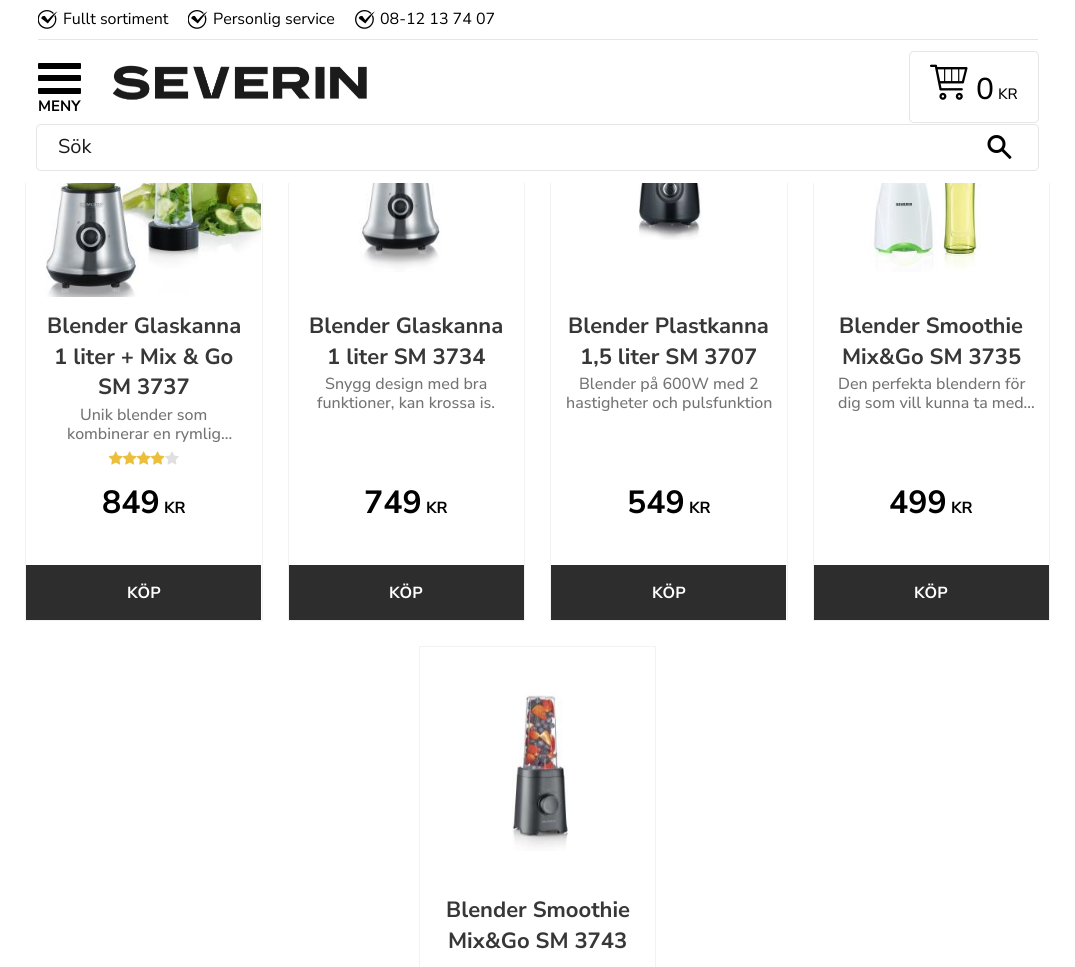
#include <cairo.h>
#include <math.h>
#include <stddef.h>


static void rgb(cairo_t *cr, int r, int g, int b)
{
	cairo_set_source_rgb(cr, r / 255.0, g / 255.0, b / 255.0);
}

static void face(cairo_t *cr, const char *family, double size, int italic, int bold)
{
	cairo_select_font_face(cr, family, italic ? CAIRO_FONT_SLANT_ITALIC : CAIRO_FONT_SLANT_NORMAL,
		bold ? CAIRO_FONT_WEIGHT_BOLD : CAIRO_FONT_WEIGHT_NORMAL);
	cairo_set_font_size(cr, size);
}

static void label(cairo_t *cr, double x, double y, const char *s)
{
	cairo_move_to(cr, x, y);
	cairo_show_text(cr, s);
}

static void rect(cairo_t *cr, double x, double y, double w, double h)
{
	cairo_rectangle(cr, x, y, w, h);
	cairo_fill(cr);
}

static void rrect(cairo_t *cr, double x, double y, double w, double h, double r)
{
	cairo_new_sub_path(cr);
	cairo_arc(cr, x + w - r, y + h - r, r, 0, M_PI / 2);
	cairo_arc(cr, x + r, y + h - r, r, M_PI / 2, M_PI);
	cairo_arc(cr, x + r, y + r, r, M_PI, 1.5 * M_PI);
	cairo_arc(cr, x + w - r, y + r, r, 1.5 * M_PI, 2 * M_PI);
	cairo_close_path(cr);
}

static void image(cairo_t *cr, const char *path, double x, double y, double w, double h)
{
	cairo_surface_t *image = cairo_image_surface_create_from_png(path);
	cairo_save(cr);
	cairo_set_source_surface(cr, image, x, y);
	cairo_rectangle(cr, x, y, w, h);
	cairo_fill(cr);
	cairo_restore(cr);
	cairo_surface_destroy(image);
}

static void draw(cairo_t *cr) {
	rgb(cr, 255, 255, 255);
	cairo_paint(cr);
	cairo_rectangle(cr, 25.5, 61.5, 237, 559);
	rgb(cr, 242, 242, 242);
	cairo_set_line_width(cr, 1);
	cairo_stroke(cr);
	cairo_rectangle(cr, 288.5, 61.5, 236, 559);
	cairo_stroke(cr);
	cairo_rectangle(cr, 550.5, 61.5, 237, 559);
	cairo_stroke(cr);
	cairo_rectangle(cr, 813.5, 61.5, 236, 559);
	cairo_stroke(cr);
	rgb(cr, 255, 255, 255);
	rect(cr, 25, 61, 1025, 122);
	rgb(cr, 230, 230, 230);
	rect(cr, 38, 39, 1000, 1);
	image(cr, "image0.png", 38, 10, 20, 19);
	face(cr, "Nunito Sans", 16, 0, 0);
	rgb(cr, 0, 0, 0);
	label(cr, 63, 24, "Fullt sortiment");
	image(cr, "image0.png", 188, 10, 20, 19);
	label(cr, 213, 24, "Personlig service");
	image(cr, "image1.png", 355, 10, 20, 19);
	label(cr, 380, 24, "08-12 13 74 07");
	image(cr, "image2.png", 112, 65, 255, 35);
	image(cr, "image3.png", 930, 64, 38, 36);
	rrect(cr, 909.5, 51.5, 129, 71, 4.5);
	rgb(cr, 230, 230, 230);
	cairo_stroke(cr);
	face(cr, "Nunito Sans Medium", 30, 0, 0);
	rgb(cr, 0, 0, 0);
	label(cr, 976, 99, "0");
	face(cr, "Nunito Sans Medium", 15, 0, 0);
	label(cr, 998, 99, "KR");
	image(cr, "image4.png", 987, 135, 25, 24);
	rrect(cr, 36.5, 124.5, 1002, 46, 4.5);
	rgb(cr, 230, 230, 230);
	cairo_stroke(cr);
	face(cr, "Nunito Sans", 20, 0, 0);
	rgb(cr, 26, 26, 26);
	label(cr, 58, 153, "Sök");
	rgb(cr, 0, 0, 0);
	rrect(cr, 38, 75, 43, 6, 1);
	cairo_fill(cr);
	rrect(cr, 38, 63, 43, 6, 1);
	cairo_fill(cr);
	rrect(cr, 38, 88, 43, 6, 1);
	cairo_fill(cr);
	face(cr, "Nunito Sans", 15, 0, 1);
	label(cr, 38, 111, "MENY");
	image(cr, "image5.png", 45, 183, 216, 114);
	face(cr, "Nunito Sans", 22, 0, 1);
	rgb(cr, 55, 55, 55);
	label(cr, 47, 333, "Blender Glaskanna");
	label(cr, 54, 364, "1 liter + Mix & Go");
	label(cr, 98, 394, "SM 3737");
	face(cr, "Nunito Sans Medium", 16, 0, 0);
	rgb(cr, 115, 115, 115);
	label(cr, 80, 420, "Unik blender som");
	label(cr, 67, 439, "kombinerar en rymlig…");
	image(cr, "image6.png", 108, 451, 57, 14);
	image(cr, "image7.png", 165, 451, 14, 14);
	face(cr, "Nunito Sans", 32, 0, 1);
	rgb(cr, 0, 0, 0);
	label(cr, 102, 513, "849");
	face(cr, "Nunito Sans", 16, 0, 1);
	label(cr, 164, 513, "KR");
	rgb(cr, 45, 45, 45);
	rect(cr, 26, 565, 235, 55);
	rgb(cr, 255, 255, 255);
	label(cr, 127, 598, "KÖP");
	image(cr, "image8.png", 359, 183, 88, 89);
	face(cr, "Nunito Sans", 22, 0, 1);
	rgb(cr, 55, 55, 55);
	label(cr, 309, 333, "Blender Glaskanna");
	label(cr, 327, 364, "1 liter SM 3734");
	face(cr, "Nunito Sans Medium", 16, 0, 0);
	rgb(cr, 115, 115, 115);
	label(cr, 325, 389, "Snygg design med bra");
	label(cr, 317, 408, "funktioner, kan krossa is.");
	face(cr, "Nunito Sans", 32, 0, 1);
	rgb(cr, 0, 0, 0);
	label(cr, 364, 513, "749");
	face(cr, "Nunito Sans", 16, 0, 1);
	label(cr, 426, 513, "KR");
	rgb(cr, 45, 45, 45);
	rect(cr, 289, 565, 235, 55);
	rgb(cr, 255, 255, 255);
	label(cr, 389, 598, "KÖP");
	image(cr, "image9.png", 633, 183, 88, 57);
	face(cr, "Nunito Sans", 22, 0, 1);
	rgb(cr, 55, 55, 55);
	label(cr, 568, 333, "Blender Plastkanna");
	label(cr, 580, 364, "1,5 liter SM 3707");
	face(cr, "Nunito Sans Medium", 16, 0, 0);
	rgb(cr, 115, 115, 115);
	label(cr, 579, 389, "Blender på 600W med 2");
	label(cr, 566, 408, "hastigheter och pulsfunktion");
	face(cr, "Nunito Sans", 32, 0, 1);
	rgb(cr, 0, 0, 0);
	label(cr, 627, 513, "549");
	face(cr, "Nunito Sans", 16, 0, 1);
	label(cr, 689, 513, "KR");
	rgb(cr, 45, 45, 45);
	rect(cr, 551, 565, 235, 55);
	rgb(cr, 255, 255, 255);
	label(cr, 652, 598, "KÖP");
	image(cr, "image10.png", 869, 183, 112, 89);
	face(cr, "Nunito Sans", 22, 0, 1);
	rgb(cr, 55, 55, 55);
	label(cr, 839, 333, "Blender Smoothie");
	label(cr, 842, 364, "Mix&Go SM 3735");
	face(cr, "Nunito Sans Medium", 16, 0, 0);
	rgb(cr, 115, 115, 115);
	label(cr, 838, 389, "Den perfekta blendern för");
	label(cr, 838, 408, "dig som vill kunna ta med…");
	face(cr, "Nunito Sans", 32, 0, 1);
	rgb(cr, 0, 0, 0);
	label(cr, 889, 513, "499");
	face(cr, "Nunito Sans", 16, 0, 1);
	label(cr, 951, 513, "KR");
	rgb(cr, 45, 45, 45);
	rect(cr, 814, 565, 235, 55);
	rgb(cr, 255, 255, 255);
	label(cr, 914, 598, "KÖP");
	cairo_rectangle(cr, 419.5, 646.5, 236, 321);
	rgb(cr, 242, 242, 242);
	cairo_stroke(cr);
	image(cr, "image11.png", 512, 692, 57, 159);
	face(cr, "Nunito Sans", 22, 0, 1);
	rgb(cr, 55, 55, 55);
	label(cr, 446, 917, "Blender Smoothie");
	label(cr, 448, 948, "Mix&Go SM 3743");
}

int main(void) {
	cairo_surface_t *surface = cairo_image_surface_create(CAIRO_FORMAT_RGB24, 1075, 967);
	cairo_t *cr = cairo_create(surface);
	cairo_font_options_t *options = cairo_font_options_create();
	cairo_font_options_set_hint_metrics(options, CAIRO_HINT_METRICS_OFF);
	cairo_font_options_set_hint_style(options, CAIRO_HINT_STYLE_NONE);
	cairo_set_font_options(cr, options);
	cairo_set_miter_limit(cr, 4);
	draw(cr);
	cairo_surface_write_to_png(surface, "render.png");
	cairo_font_options_destroy(options);
	cairo_destroy(cr);
	cairo_surface_destroy(surface);
	return 0;
}
